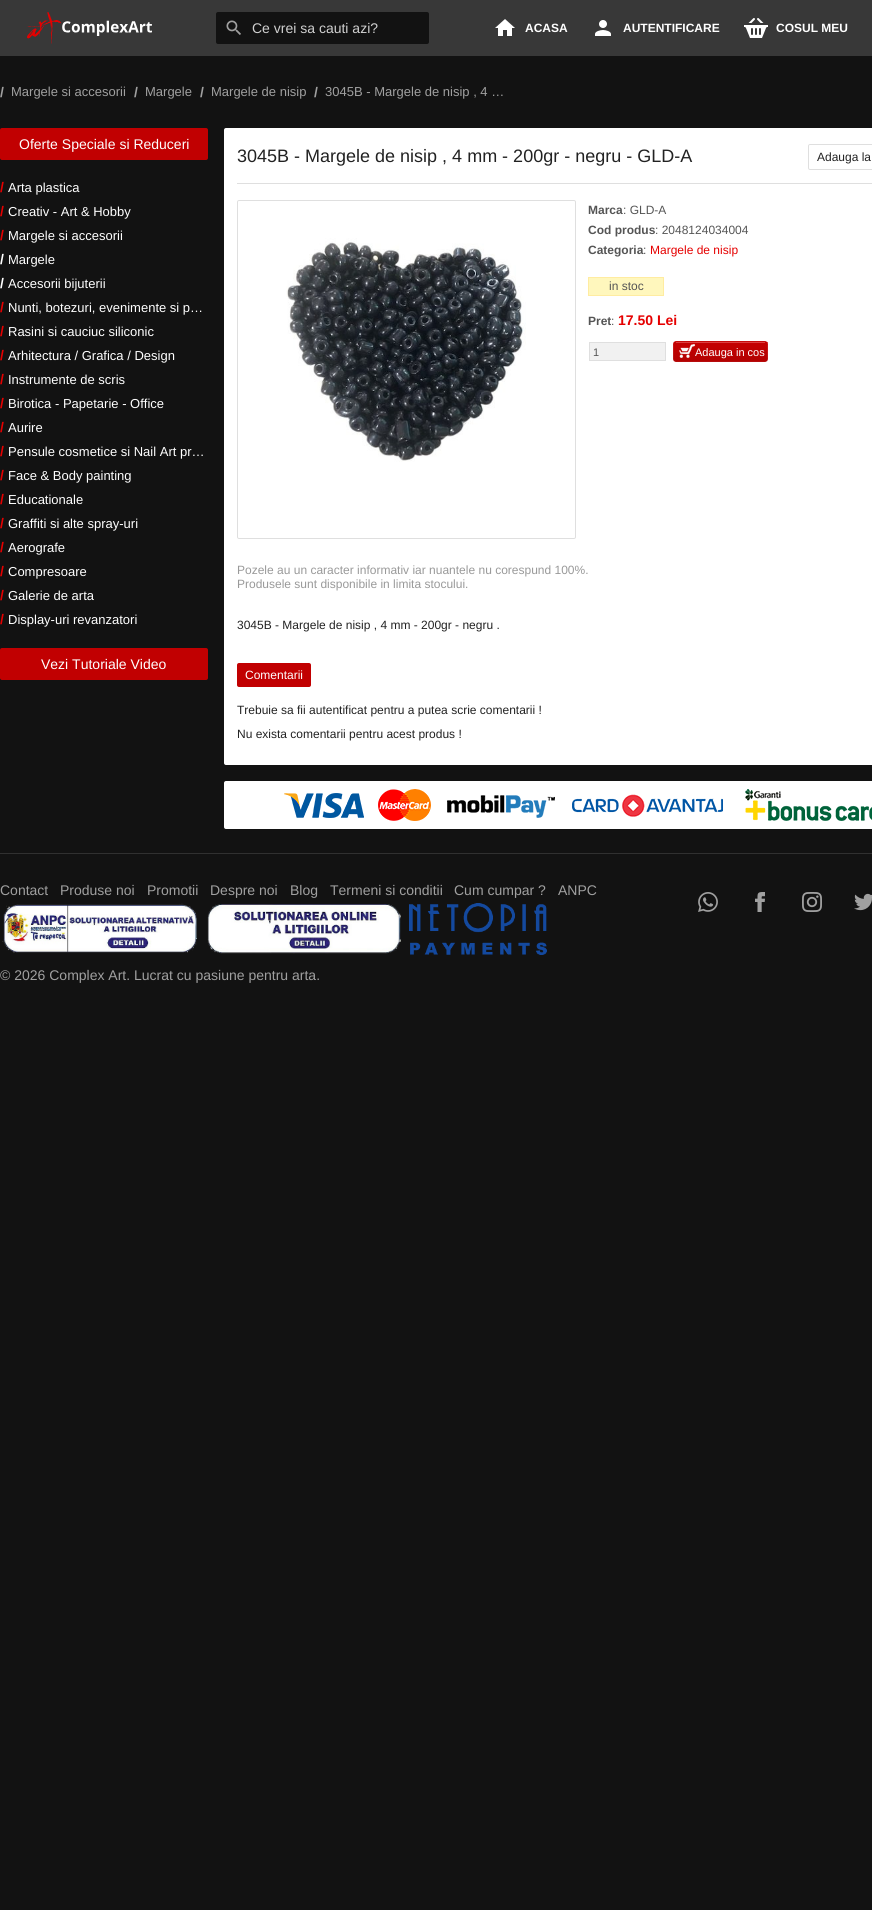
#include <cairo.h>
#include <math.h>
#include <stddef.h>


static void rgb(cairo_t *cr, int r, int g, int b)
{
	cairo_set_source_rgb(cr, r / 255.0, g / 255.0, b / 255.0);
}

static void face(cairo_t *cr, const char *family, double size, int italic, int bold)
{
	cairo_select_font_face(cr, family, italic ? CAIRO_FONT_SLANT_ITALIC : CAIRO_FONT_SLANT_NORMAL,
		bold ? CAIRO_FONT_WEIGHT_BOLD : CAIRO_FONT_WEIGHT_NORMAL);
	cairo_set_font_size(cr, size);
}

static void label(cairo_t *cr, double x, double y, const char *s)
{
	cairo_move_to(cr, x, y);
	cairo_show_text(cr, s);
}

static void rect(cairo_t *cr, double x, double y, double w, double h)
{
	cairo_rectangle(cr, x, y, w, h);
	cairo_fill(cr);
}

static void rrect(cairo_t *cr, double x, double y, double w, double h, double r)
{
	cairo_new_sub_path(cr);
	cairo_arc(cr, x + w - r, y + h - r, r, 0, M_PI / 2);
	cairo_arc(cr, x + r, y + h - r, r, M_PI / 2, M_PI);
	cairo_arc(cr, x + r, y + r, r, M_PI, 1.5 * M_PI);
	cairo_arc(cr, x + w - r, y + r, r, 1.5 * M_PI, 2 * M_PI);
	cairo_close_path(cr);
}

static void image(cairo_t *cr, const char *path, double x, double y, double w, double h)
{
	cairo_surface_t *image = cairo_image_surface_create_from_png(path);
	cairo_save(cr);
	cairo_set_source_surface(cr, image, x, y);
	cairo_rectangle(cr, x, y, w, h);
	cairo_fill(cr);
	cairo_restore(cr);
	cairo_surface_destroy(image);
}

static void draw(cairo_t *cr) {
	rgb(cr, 18, 18, 18);
	cairo_paint(cr);
	rgb(cr, 56, 56, 56);
	rect(cr, 0, 0, 872, 56);
	image(cr, "image0.png", 27, 12, 125, 32);
	rgb(cr, 18, 18, 18);
	rrect(cr, 216, 12, 213, 32, 2);
	cairo_fill(cr);
	image(cr, "image1.png", 226, 20, 15, 15);
	face(cr, "Liberation Sans", 14, 0, 0);
	rgb(cr, 208, 208, 208);
	label(cr, 252, 33, "Ce vrei sa cauti azi?");
	image(cr, "image2.png", 495, 19, 20, 17);
	face(cr, "Liberation Sans", 12, 0, 1);
	rgb(cr, 255, 255, 255);
	label(cr, 525, 32, "ACASA");
	image(cr, "image3.png", 595, 20, 16, 16);
	label(cr, 623, 32, "AUTENTIFICARE");
	image(cr, "image4.png", 744, 18, 24, 20);
	label(cr, 776, 32, "COSUL MEU");
	face(cr, "Liberation Sans", 14, 0, 1);
	rgb(cr, 160, 160, 160);
	label(cr, 0, 97, "/");
	face(cr, "Liberation Sans", 13, 0, 0);
	label(cr, 11, 96, "Margele si accesorii");
	face(cr, "Liberation Sans", 14, 0, 1);
	label(cr, 134, 97, "/");
	face(cr, "Liberation Sans", 13, 0, 0);
	label(cr, 145, 96, "Margele");
	face(cr, "Liberation Sans", 14, 0, 1);
	label(cr, 200, 97, "/");
	face(cr, "Liberation Sans", 13, 0, 0);
	label(cr, 211, 96, "Margele de nisip");
	face(cr, "Liberation Sans", 14, 0, 1);
	label(cr, 314, 97, "/");
	face(cr, "Liberation Sans", 13, 0, 0);
	label(cr, 325, 96, "3045B - Margele de nisip , 4 …");
	rgb(cr, 193, 0, 1);
	rrect(cr, 0, 128, 208, 32, 2);
	cairo_fill(cr);
	face(cr, "Liberation Sans", 14, 0, 0);
	rgb(cr, 255, 255, 255);
	label(cr, 19, 149, "Oferte Speciale si Reduceri");
	face(cr, "Liberation Sans", 14, 0, 1);
	rgb(cr, 229, 0, 0);
	label(cr, 0, 192, "/");
	face(cr, "Liberation Sans", 13, 0, 0);
	rgb(cr, 255, 255, 255);
	label(cr, 8, 192, "Arta plastica");
	face(cr, "Liberation Sans", 14, 0, 1);
	rgb(cr, 229, 0, 0);
	label(cr, 0, 216, "/");
	face(cr, "Liberation Sans", 13, 0, 0);
	rgb(cr, 255, 255, 255);
	label(cr, 8, 216, "Creativ - Art & Hobby");
	face(cr, "Liberation Sans", 14, 0, 1);
	rgb(cr, 229, 0, 0);
	label(cr, 0, 240, "/");
	face(cr, "Liberation Sans", 13, 0, 0);
	rgb(cr, 255, 255, 255);
	label(cr, 8, 240, "Margele si accesorii");
	face(cr, "Liberation Sans", 14, 0, 1);
	label(cr, 0, 264, "/");
	face(cr, "Liberation Sans", 13, 0, 0);
	label(cr, 8, 264, "Margele");
	face(cr, "Liberation Sans", 14, 0, 1);
	label(cr, 0, 288, "/");
	face(cr, "Liberation Sans", 13, 0, 0);
	label(cr, 8, 288, "Accesorii bijuterii");
	face(cr, "Liberation Sans", 14, 0, 1);
	rgb(cr, 229, 0, 0);
	label(cr, 0, 312, "/");
	face(cr, "Liberation Sans", 13, 0, 0);
	rgb(cr, 255, 255, 255);
	label(cr, 8, 312, "Nunti, botezuri, evenimente si p…");
	face(cr, "Liberation Sans", 14, 0, 1);
	rgb(cr, 229, 0, 0);
	label(cr, 0, 336, "/");
	face(cr, "Liberation Sans", 13, 0, 0);
	rgb(cr, 255, 255, 255);
	label(cr, 8, 336, "Rasini si cauciuc siliconic");
	face(cr, "Liberation Sans", 14, 0, 1);
	rgb(cr, 229, 0, 0);
	label(cr, 0, 360, "/");
	face(cr, "Liberation Sans", 13, 0, 0);
	rgb(cr, 255, 255, 255);
	label(cr, 8, 360, "Arhitectura / Grafica / Design");
	face(cr, "Liberation Sans", 14, 0, 1);
	rgb(cr, 229, 0, 0);
	label(cr, 0, 384, "/");
	face(cr, "Liberation Sans", 13, 0, 0);
	rgb(cr, 255, 255, 255);
	label(cr, 8, 384, "Instrumente de scris");
	face(cr, "Liberation Sans", 14, 0, 1);
	rgb(cr, 229, 0, 0);
	label(cr, 0, 408, "/");
	face(cr, "Liberation Sans", 13, 0, 0);
	rgb(cr, 255, 255, 255);
	label(cr, 8, 408, "Birotica - Papetarie - Office");
	face(cr, "Liberation Sans", 14, 0, 1);
	rgb(cr, 229, 0, 0);
	label(cr, 0, 432, "/");
	face(cr, "Liberation Sans", 13, 0, 0);
	rgb(cr, 255, 255, 255);
	label(cr, 8, 432, "Aurire");
	face(cr, "Liberation Sans", 14, 0, 1);
	rgb(cr, 229, 0, 0);
	label(cr, 0, 456, "/");
	face(cr, "Liberation Sans", 13, 0, 0);
	rgb(cr, 255, 255, 255);
	label(cr, 8, 456, "Pensule cosmetice si Nail Art pr…");
	face(cr, "Liberation Sans", 14, 0, 1);
	rgb(cr, 229, 0, 0);
	label(cr, 0, 480, "/");
	face(cr, "Liberation Sans", 13, 0, 0);
	rgb(cr, 255, 255, 255);
	label(cr, 8, 480, "Face & Body painting");
	face(cr, "Liberation Sans", 14, 0, 1);
	rgb(cr, 229, 0, 0);
	label(cr, 0, 504, "/");
	face(cr, "Liberation Sans", 13, 0, 0);
	rgb(cr, 255, 255, 255);
	label(cr, 8, 504, "Educationale");
	face(cr, "Liberation Sans", 14, 0, 1);
	rgb(cr, 229, 0, 0);
	label(cr, 0, 528, "/");
	face(cr, "Liberation Sans", 13, 0, 0);
	rgb(cr, 255, 255, 255);
	label(cr, 8, 528, "Graffiti si alte spray-uri");
	face(cr, "Liberation Sans", 14, 0, 1);
	rgb(cr, 229, 0, 0);
	label(cr, 0, 552, "/");
	face(cr, "Liberation Sans", 13, 0, 0);
	rgb(cr, 255, 255, 255);
	label(cr, 8, 552, "Aerografe");
	face(cr, "Liberation Sans", 14, 0, 1);
	rgb(cr, 229, 0, 0);
	label(cr, 0, 576, "/");
	face(cr, "Liberation Sans", 13, 0, 0);
	rgb(cr, 255, 255, 255);
	label(cr, 8, 576, "Compresoare");
	face(cr, "Liberation Sans", 14, 0, 1);
	rgb(cr, 229, 0, 0);
	label(cr, 0, 600, "/");
	face(cr, "Liberation Sans", 13, 0, 0);
	rgb(cr, 255, 255, 255);
	label(cr, 8, 600, "Galerie de arta");
	face(cr, "Liberation Sans", 14, 0, 1);
	rgb(cr, 229, 0, 0);
	label(cr, 0, 624, "/");
	face(cr, "Liberation Sans", 13, 0, 0);
	rgb(cr, 255, 255, 255);
	label(cr, 8, 624, "Display-uri revanzatori");
	rgb(cr, 193, 0, 1);
	rrect(cr, 0, 648, 208, 32, 2);
	cairo_fill(cr);
	face(cr, "Liberation Sans", 14, 0, 0);
	rgb(cr, 255, 255, 255);
	label(cr, 41, 669, "Vezi Tutoriale Video");
	rrect(cr, 224, 128, 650, 637, 2);
	cairo_fill(cr);
	face(cr, "Liberation Sans", 18, 0, 0);
	rgb(cr, 34, 34, 34);
	label(cr, 237, 162, "3045B - Margele de nisip , 4 mm - 200gr - negru - GLD-A");
	rrect(cr, 808.5, 144.5, 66, 25, 1.5);
	rgb(cr, 223, 223, 223);
	cairo_set_line_width(cr, 1);
	cairo_stroke(cr);
	face(cr, "Liberation Sans", 12, 0, 0);
	rgb(cr, 34, 34, 34);
	label(cr, 817, 161, "Adauga la");
	rgb(cr, 223, 223, 223);
	rect(cr, 237, 183, 635, 1);
	rrect(cr, 237.5, 200.5, 338, 338, 1.5);
	cairo_stroke(cr);
	image(cr, "image5.png", 286, 238, 240, 224);
	face(cr, "Liberation Sans", 12, 0, 1);
	rgb(cr, 85, 85, 85);
	label(cr, 588, 214, "Marca");
	face(cr, "Liberation Sans", 12, 0, 0);
	label(cr, 623, 214, ": GLD-A");
	face(cr, "Liberation Sans", 12, 0, 1);
	label(cr, 588, 234, "Cod produs");
	face(cr, "Liberation Sans", 12, 0, 0);
	label(cr, 655, 234, ": 2048124034004");
	face(cr, "Liberation Sans", 12, 0, 1);
	label(cr, 588, 254, "Categoria");
	face(cr, "Liberation Sans", 12, 0, 0);
	label(cr, 643, 254, ":");
	rgb(cr, 229, 0, 0);
	label(cr, 650, 254, "Margele de nisip");
	rgb(cr, 255, 247, 189);
	cairo_rectangle(cr, 588.5, 277.5, 75, 18);
	cairo_fill_preserve(cr);
	rgb(cr, 255, 236, 161);
	cairo_stroke(cr);
	rgb(cr, 85, 85, 85);
	label(cr, 609, 290, "in stoc");
	face(cr, "Liberation Sans", 12, 0, 1);
	label(cr, 588, 325, "Pret");
	face(cr, "Liberation Sans", 12, 0, 0);
	label(cr, 611, 325, ":");
	face(cr, "Liberation Sans", 14, 0, 1);
	rgb(cr, 229, 0, 0);
	label(cr, 618, 325, "17.50 Lei");
	rgb(cr, 241, 241, 241);
	cairo_rectangle(cr, 589.5, 342.5, 76, 18);
	cairo_fill_preserve(cr);
	rgb(cr, 223, 223, 223);
	cairo_stroke(cr);
	face(cr, "Liberation Sans", 11, 0, 0);
	rgb(cr, 85, 85, 85);
	label(cr, 593, 356, "1");
	image(cr, "image6.png", 673, 341, 95, 21);
	rgb(cr, 255, 255, 255);
	label(cr, 695, 356, "Adauga in cos");
	face(cr, "Liberation Sans", 12, 0, 0);
	rgb(cr, 153, 153, 153);
	label(cr, 237, 574, "Pozele au un caracter informativ iar nuantele nu corespund 100%.");
	label(cr, 237, 588, "Produsele sunt disponibile in limita stocului.");
	rgb(cr, 34, 34, 34);
	label(cr, 237, 629, "3045B - Margele de nisip , 4 mm - 200gr - negru .");
	rgb(cr, 193, 0, 1);
	rrect(cr, 237, 663, 74, 24, 2);
	cairo_fill(cr);
	rgb(cr, 255, 255, 255);
	label(cr, 245, 679, "Comentarii");
	rgb(cr, 34, 34, 34);
	label(cr, 237, 714, "Trebuie sa fii autentificat pentru a putea scrie comentarii !");
	label(cr, 237, 738, "Nu exista comentarii pentru acest produs !");
	rgb(cr, 255, 255, 255);
	rrect(cr, 224, 781, 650, 48, 2);
	cairo_fill(cr);
	image(cr, "image7.png", 284, 789, 588, 32);
	rgb(cr, 48, 48, 48);
	rect(cr, 0, 853, 872, 1);
	face(cr, "Liberation Sans", 14, 0, 0);
	rgb(cr, 160, 160, 160);
	label(cr, 0, 895, "Contact");
	label(cr, 60, 895, "Produse noi");
	label(cr, 147, 895, "Promotii");
	label(cr, 210, 895, "Despre noi");
	label(cr, 290, 895, "Blog");
	label(cr, 330, 895, "Termeni si conditii");
	label(cr, 454, 895, "Cum cumpar ?");
	label(cr, 558, 895, "ANPC");
	image(cr, "image8.png", 2, 903, 195, 50);
	image(cr, "image9.png", 207, 904, 194, 50);
	image(cr, "image10.png", 409, 903, 138, 52);
	label(cr, 0, 980, "© 2026 Complex Art. Lucrat cu pasiune pentru arta.");
	image(cr, "image11.png", 698, 892, 20, 20);
	image(cr, "image12.png", 755, 892, 10, 20);
	image(cr, "image13.png", 802, 892, 20, 20);
	image(cr, "image14.png", 854, 893, 18, 18);
}

int main(void) {
	cairo_surface_t *surface = cairo_image_surface_create(CAIRO_FORMAT_RGB24, 872, 1910);
	cairo_t *cr = cairo_create(surface);
	cairo_font_options_t *options = cairo_font_options_create();
	cairo_font_options_set_hint_metrics(options, CAIRO_HINT_METRICS_OFF);
	cairo_font_options_set_hint_style(options, CAIRO_HINT_STYLE_NONE);
	cairo_set_font_options(cr, options);
	cairo_set_miter_limit(cr, 4);
	draw(cr);
	cairo_surface_write_to_png(surface, "render.png");
	cairo_font_options_destroy(options);
	cairo_destroy(cr);
	cairo_surface_destroy(surface);
	return 0;
}
